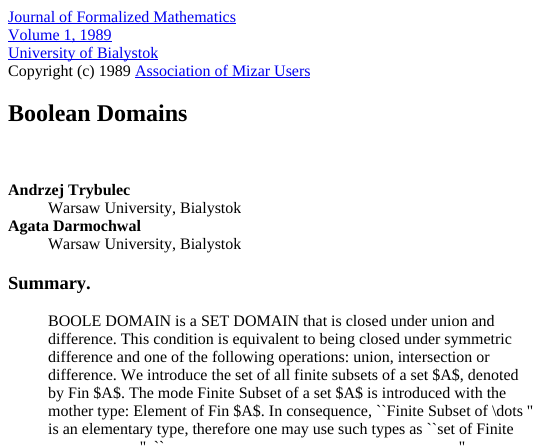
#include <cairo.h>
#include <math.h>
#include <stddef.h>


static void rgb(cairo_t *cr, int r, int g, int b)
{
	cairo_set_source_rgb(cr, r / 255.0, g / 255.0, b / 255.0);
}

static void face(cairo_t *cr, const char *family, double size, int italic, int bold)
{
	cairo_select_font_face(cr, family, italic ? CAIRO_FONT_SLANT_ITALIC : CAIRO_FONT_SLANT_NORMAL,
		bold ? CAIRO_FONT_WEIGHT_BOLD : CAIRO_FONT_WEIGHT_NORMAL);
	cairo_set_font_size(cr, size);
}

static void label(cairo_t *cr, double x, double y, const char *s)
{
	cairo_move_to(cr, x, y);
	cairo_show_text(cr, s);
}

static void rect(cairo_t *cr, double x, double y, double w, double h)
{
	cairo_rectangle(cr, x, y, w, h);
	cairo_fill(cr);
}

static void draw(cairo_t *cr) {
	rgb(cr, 255, 255, 255);
	cairo_paint(cr);
	face(cr, "Liberation Serif", 16, 0, 0);
	rgb(cr, 0, 0, 238);
	label(cr, 8, 22, "Journal of Formalized Mathematics");
	rect(cr, 8, 23, 228, 1);
	rect(cr, 8, 41, 104, 1);
	label(cr, 8, 40, "Volume 1, 1989");
	rect(cr, 8, 59, 150, 1);
	label(cr, 8, 58, "University of Bialystok");
	rgb(cr, 0, 0, 0);
	label(cr, 8, 76, "Copyright (c) 1989");
	rgb(cr, 0, 0, 238);
	label(cr, 135, 76, "Association of Mizar Users");
	rect(cr, 135, 77, 175, 1);
	face(cr, "Liberation Serif", 24, 0, 1);
	rgb(cr, 0, 0, 0);
	label(cr, 8, 121, "Boolean Domains");
	face(cr, "Liberation Serif", 16, 0, 1);
	label(cr, 8, 195, "Andrzej Trybulec");
	face(cr, "Liberation Serif", 16, 0, 0);
	label(cr, 48, 213, "Warsaw University, Bialystok");
	face(cr, "Liberation Serif", 16, 0, 1);
	label(cr, 8, 231, "Agata Darmochwal");
	face(cr, "Liberation Serif", 16, 0, 0);
	label(cr, 48, 249, "Warsaw University, Bialystok");
	face(cr, "Liberation Serif", 18.5, 0, 1);
	label(cr, 8, 289, "Summary.");
	face(cr, "Liberation Serif", 16, 0, 0);
	label(cr, 48, 326, "BOOLE DOMAIN is a SET DOMAIN that is closed under union and");
	label(cr, 48, 344, "difference. This condition is equivalent to being closed under symmetric");
	label(cr, 48, 362, "difference and one of the following operations: union, intersection or");
	label(cr, 48, 380, "difference. We introduce the set of all finite subsets of a set $A$, denoted");
	label(cr, 48, 398, "by Fin $A$. The mode Finite Subset of a set $A$ is introduced with the");
	label(cr, 48, 416, "mother type: Element of Fin $A$. In consequence, ``Finite Subset of \\dots ''");
	label(cr, 48, 434, "is an elementary type, therefore one may use such types as ``set of Finite");
	label(cr, 140, 452, "'', ``");
	label(cr, 459, 452, "''");
}

int main(void) {
	cairo_surface_t *surface = cairo_image_surface_create(CAIRO_FORMAT_RGB24, 544, 446);
	cairo_t *cr = cairo_create(surface);
	cairo_font_options_t *options = cairo_font_options_create();
	cairo_font_options_set_hint_metrics(options, CAIRO_HINT_METRICS_OFF);
	cairo_font_options_set_hint_style(options, CAIRO_HINT_STYLE_NONE);
	cairo_set_font_options(cr, options);
	cairo_set_miter_limit(cr, 4);
	draw(cr);
	cairo_surface_write_to_png(surface, "render.png");
	cairo_font_options_destroy(options);
	cairo_destroy(cr);
	cairo_surface_destroy(surface);
	return 0;
}
